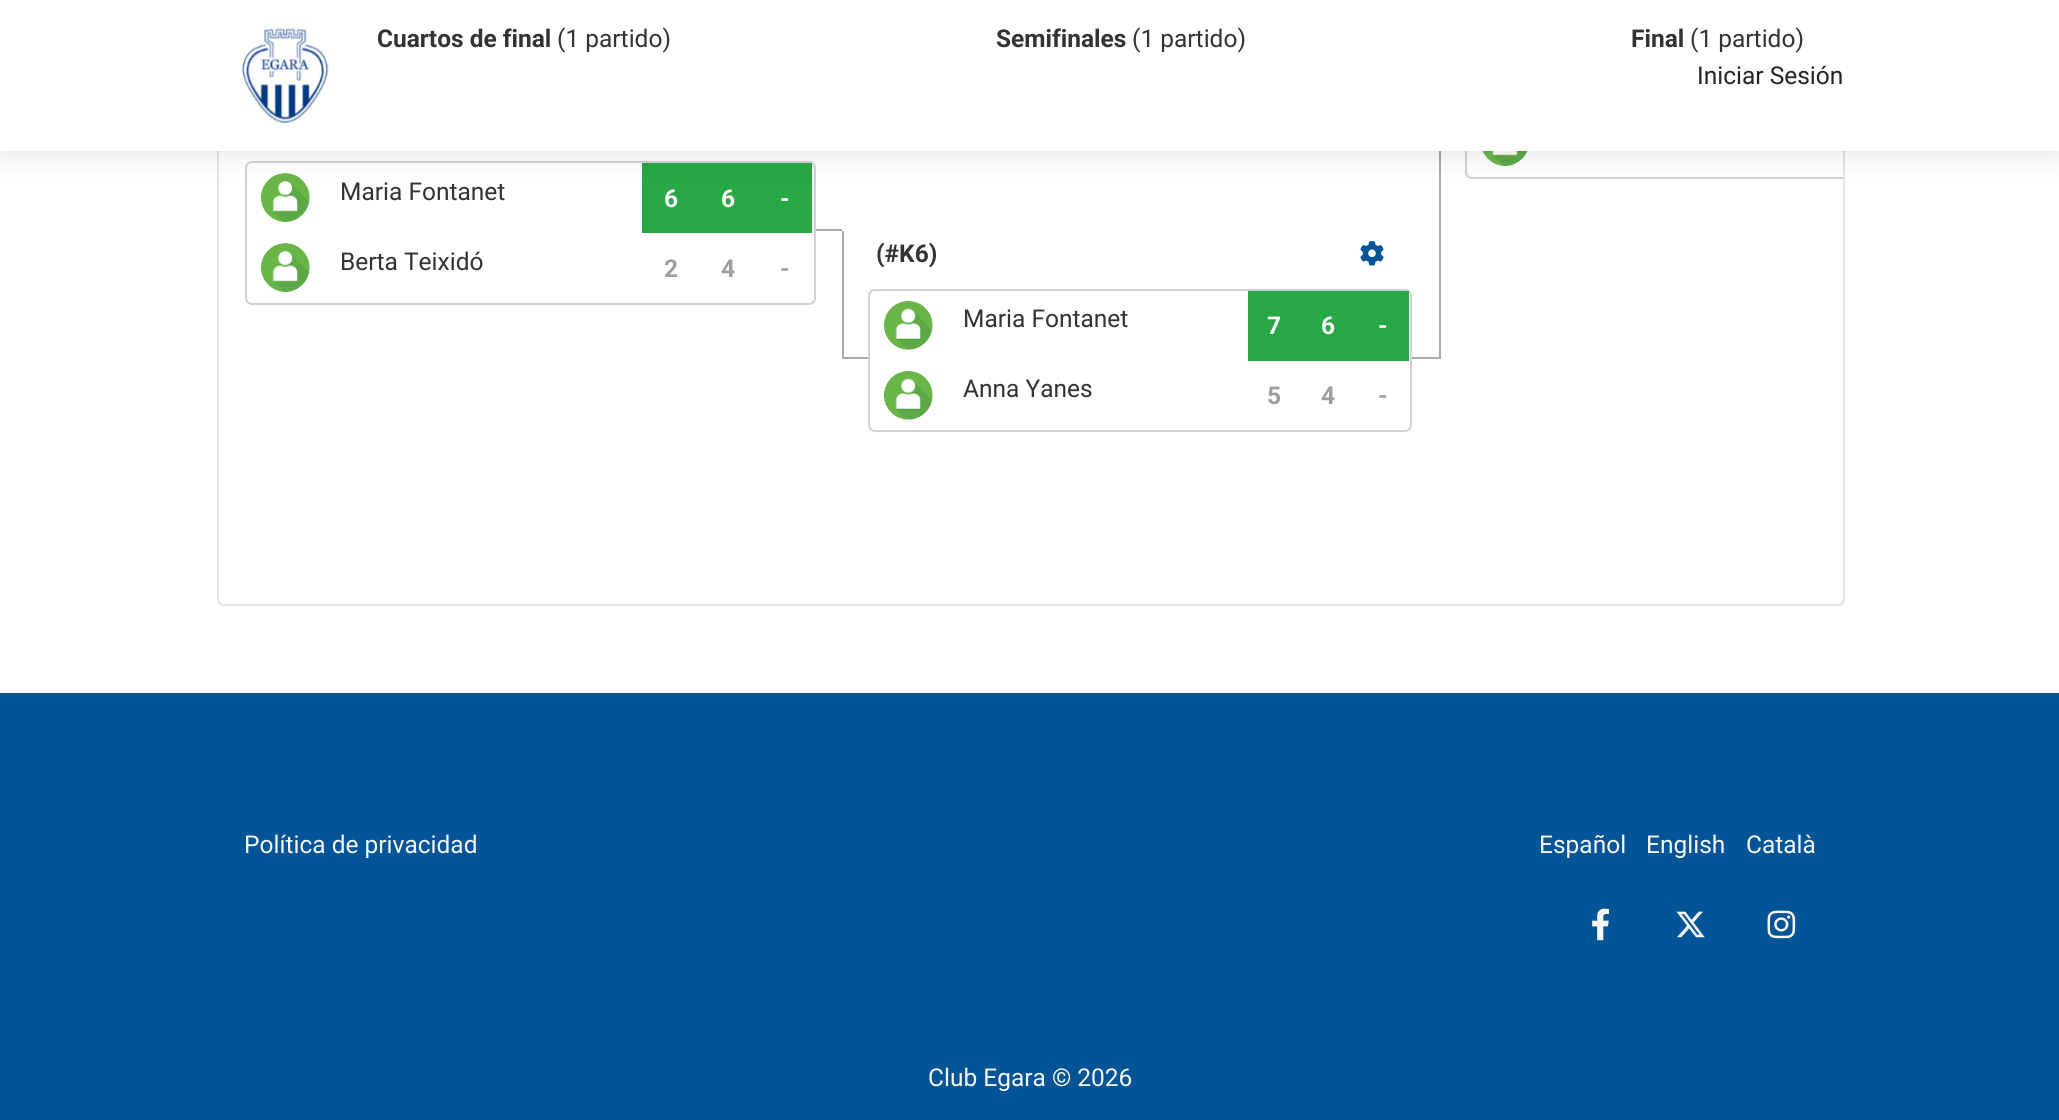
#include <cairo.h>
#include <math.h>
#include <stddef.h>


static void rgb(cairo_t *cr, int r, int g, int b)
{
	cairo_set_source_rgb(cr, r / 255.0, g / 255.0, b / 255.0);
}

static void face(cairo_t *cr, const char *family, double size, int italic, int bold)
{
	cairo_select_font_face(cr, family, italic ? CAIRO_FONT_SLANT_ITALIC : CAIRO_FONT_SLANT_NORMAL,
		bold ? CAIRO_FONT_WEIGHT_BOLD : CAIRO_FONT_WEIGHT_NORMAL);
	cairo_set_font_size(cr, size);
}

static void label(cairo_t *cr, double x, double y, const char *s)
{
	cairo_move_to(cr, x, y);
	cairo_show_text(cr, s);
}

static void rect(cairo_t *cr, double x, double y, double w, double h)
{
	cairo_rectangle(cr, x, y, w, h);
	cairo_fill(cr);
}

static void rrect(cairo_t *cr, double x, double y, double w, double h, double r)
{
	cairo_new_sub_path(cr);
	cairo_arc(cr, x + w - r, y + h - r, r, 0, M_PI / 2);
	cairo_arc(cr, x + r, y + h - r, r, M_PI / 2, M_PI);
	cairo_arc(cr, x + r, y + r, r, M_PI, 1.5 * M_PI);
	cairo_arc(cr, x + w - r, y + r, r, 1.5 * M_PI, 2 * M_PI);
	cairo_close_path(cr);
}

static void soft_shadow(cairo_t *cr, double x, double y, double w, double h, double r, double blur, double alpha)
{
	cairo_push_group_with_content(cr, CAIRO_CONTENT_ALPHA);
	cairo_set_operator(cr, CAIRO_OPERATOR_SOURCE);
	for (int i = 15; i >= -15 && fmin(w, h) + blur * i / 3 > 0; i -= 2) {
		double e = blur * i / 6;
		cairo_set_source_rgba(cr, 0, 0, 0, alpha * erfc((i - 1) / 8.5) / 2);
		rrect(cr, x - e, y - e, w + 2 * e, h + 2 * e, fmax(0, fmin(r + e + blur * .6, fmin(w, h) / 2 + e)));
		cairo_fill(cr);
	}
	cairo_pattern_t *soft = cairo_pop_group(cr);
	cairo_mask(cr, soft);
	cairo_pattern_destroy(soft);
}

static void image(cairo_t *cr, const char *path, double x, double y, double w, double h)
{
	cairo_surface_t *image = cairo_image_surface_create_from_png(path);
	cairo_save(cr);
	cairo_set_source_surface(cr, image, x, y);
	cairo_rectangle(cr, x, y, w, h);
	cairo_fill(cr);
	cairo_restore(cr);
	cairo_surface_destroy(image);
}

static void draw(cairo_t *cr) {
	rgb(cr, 255, 255, 255);
	cairo_paint(cr);
	rrect(cr, 218, -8, 1626, 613, 6);
	rgb(cr, 228, 228, 228);
	cairo_stroke(cr);
	rrect(cr, 246, 162, 569, 142, 6);
	rgb(cr, 209, 209, 209);
	cairo_stroke(cr);
	image(cr, "image0.png", 260, 173, 50, 49);
	rgb(cr, 40, 167, 69);
	rect(cr, 642, 163, 170, 70);
	cairo_save(cr);
	cairo_rectangle(cr, 219, 0, 1624, 604);
	cairo_clip(cr);
	rrect(cr, 1466, 36, 568, 142, 6);
	rgb(cr, 209, 209, 209);
	cairo_stroke(cr);
	cairo_restore(cr);
	image(cr, "image3.png", 1482, 151, 46, 15);
	rgb(cr, 170, 170, 170);
	rect(cr, 1439, 151, 2, 208);
	rgb(cr, 0, 0, 0);
	soft_shadow(cr, 0, 5, 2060, 151, 0, 14, 0.1);
	rgb(cr, 255, 255, 255);
	rect(cr, 0, 0, 2059, 151);
	face(cr, "Roboto", 24.5, 0, 1);
	rgb(cr, 51, 51, 51);
	label(cr, 377, 47, "Cuartos de final");
	face(cr, "Roboto", 24.5, 0, 0);
	label(cr, 557, 47, "(1 partido)");
	label(cr, 340, 200, "Maria Fontanet");
	image(cr, "image0.png", 260, 243, 50, 49);
	label(cr, 340, 270, "Berta Teixidó");
	face(cr, "Roboto", 24.5, 0, 1);
	rgb(cr, 255, 255, 255);
	label(cr, 664, 207, "6");
	rgb(cr, 158, 158, 158);
	label(cr, 664, 277, "2");
	rgb(cr, 255, 255, 255);
	label(cr, 721, 207, "6");
	rgb(cr, 158, 158, 158);
	label(cr, 721, 277, "4");
	rgb(cr, 255, 255, 255);
	label(cr, 780, 207, "-");
	rgb(cr, 158, 158, 158);
	label(cr, 780, 277, "-");
	rgb(cr, 170, 170, 170);
	rect(cr, 816, 229, 26, 2);
	rgb(cr, 51, 51, 51);
	label(cr, 996, 47, "Semifinales");
	face(cr, "Roboto", 24.5, 0, 0);
	label(cr, 1132, 47, "(1 partido)");
	rgb(cr, 170, 170, 170);
	rect(cr, 842, 231, 2, 126);
	face(cr, "Roboto", 24.5, 0, 1);
	rgb(cr, 51, 51, 51);
	label(cr, 876, 262, "(#K6)");
	image(cr, "image1.png", 1360, 241, 24, 25);
	rgb(cr, 170, 170, 170);
	rect(cr, 842, 357, 26, 2);
	rrect(cr, 869, 290, 542, 141, 6);
	rgb(cr, 209, 209, 209);
	cairo_stroke(cr);
	image(cr, "image2.png", 883, 300, 50, 50);
	face(cr, "Roboto", 24.5, 0, 0);
	rgb(cr, 51, 51, 51);
	label(cr, 963, 327, "Maria Fontanet");
	image(cr, "image2.png", 883, 370, 50, 50);
	label(cr, 963, 397, "Anna Yanes");
	rgb(cr, 40, 167, 69);
	rect(cr, 1248, 291, 161, 70);
	face(cr, "Roboto", 24.5, 0, 1);
	rgb(cr, 255, 255, 255);
	label(cr, 1267, 334, "7");
	rgb(cr, 158, 158, 158);
	label(cr, 1267, 404, "5");
	rgb(cr, 255, 255, 255);
	label(cr, 1321, 334, "6");
	rgb(cr, 158, 158, 158);
	label(cr, 1321, 404, "4");
	rgb(cr, 255, 255, 255);
	label(cr, 1378, 334, "-");
	rgb(cr, 158, 158, 158);
	label(cr, 1378, 404, "-");
	rgb(cr, 170, 170, 170);
	rect(cr, 1412, 357, 27, 2);
	rgb(cr, 51, 51, 51);
	label(cr, 1631, 47, "Final");
	face(cr, "Roboto", 24.5, 0, 0);
	label(cr, 1690, 47, "(1 partido)");
	image(cr, "image4.png", 242, 28, 87, 96);
	rgb(cr, 36, 36, 36);
	label(cr, 1697, 84, "Iniciar Sesión");
	rgb(cr, 1, 84, 150);
	rect(cr, 0, 693, 2059, 427);
	rgb(cr, 247, 247, 247);
	label(cr, 244, 853, "Política de privacidad");
	label(cr, 1539, 853, "Español");
	label(cr, 1646, 853, "English");
	label(cr, 1746, 853, "Català");
	image(cr, "image5.png", 1592, 908, 18, 33);
	image(cr, "image6.png", 1676, 911, 29, 27);
	image(cr, "image7.png", 1767, 910, 29, 29);
	label(cr, 928, 1086, "Club Egara © 2026");
}

int main(void) {
	cairo_surface_t *surface = cairo_image_surface_create(CAIRO_FORMAT_RGB24, 2059, 1120);
	cairo_t *cr = cairo_create(surface);
	cairo_font_options_t *options = cairo_font_options_create();
	cairo_font_options_set_hint_metrics(options, CAIRO_HINT_METRICS_OFF);
	cairo_font_options_set_hint_style(options, CAIRO_HINT_STYLE_NONE);
	cairo_set_font_options(cr, options);
	cairo_set_miter_limit(cr, 4);
	draw(cr);
	cairo_surface_write_to_png(surface, "render.png");
	cairo_font_options_destroy(options);
	cairo_destroy(cr);
	cairo_surface_destroy(surface);
	return 0;
}
